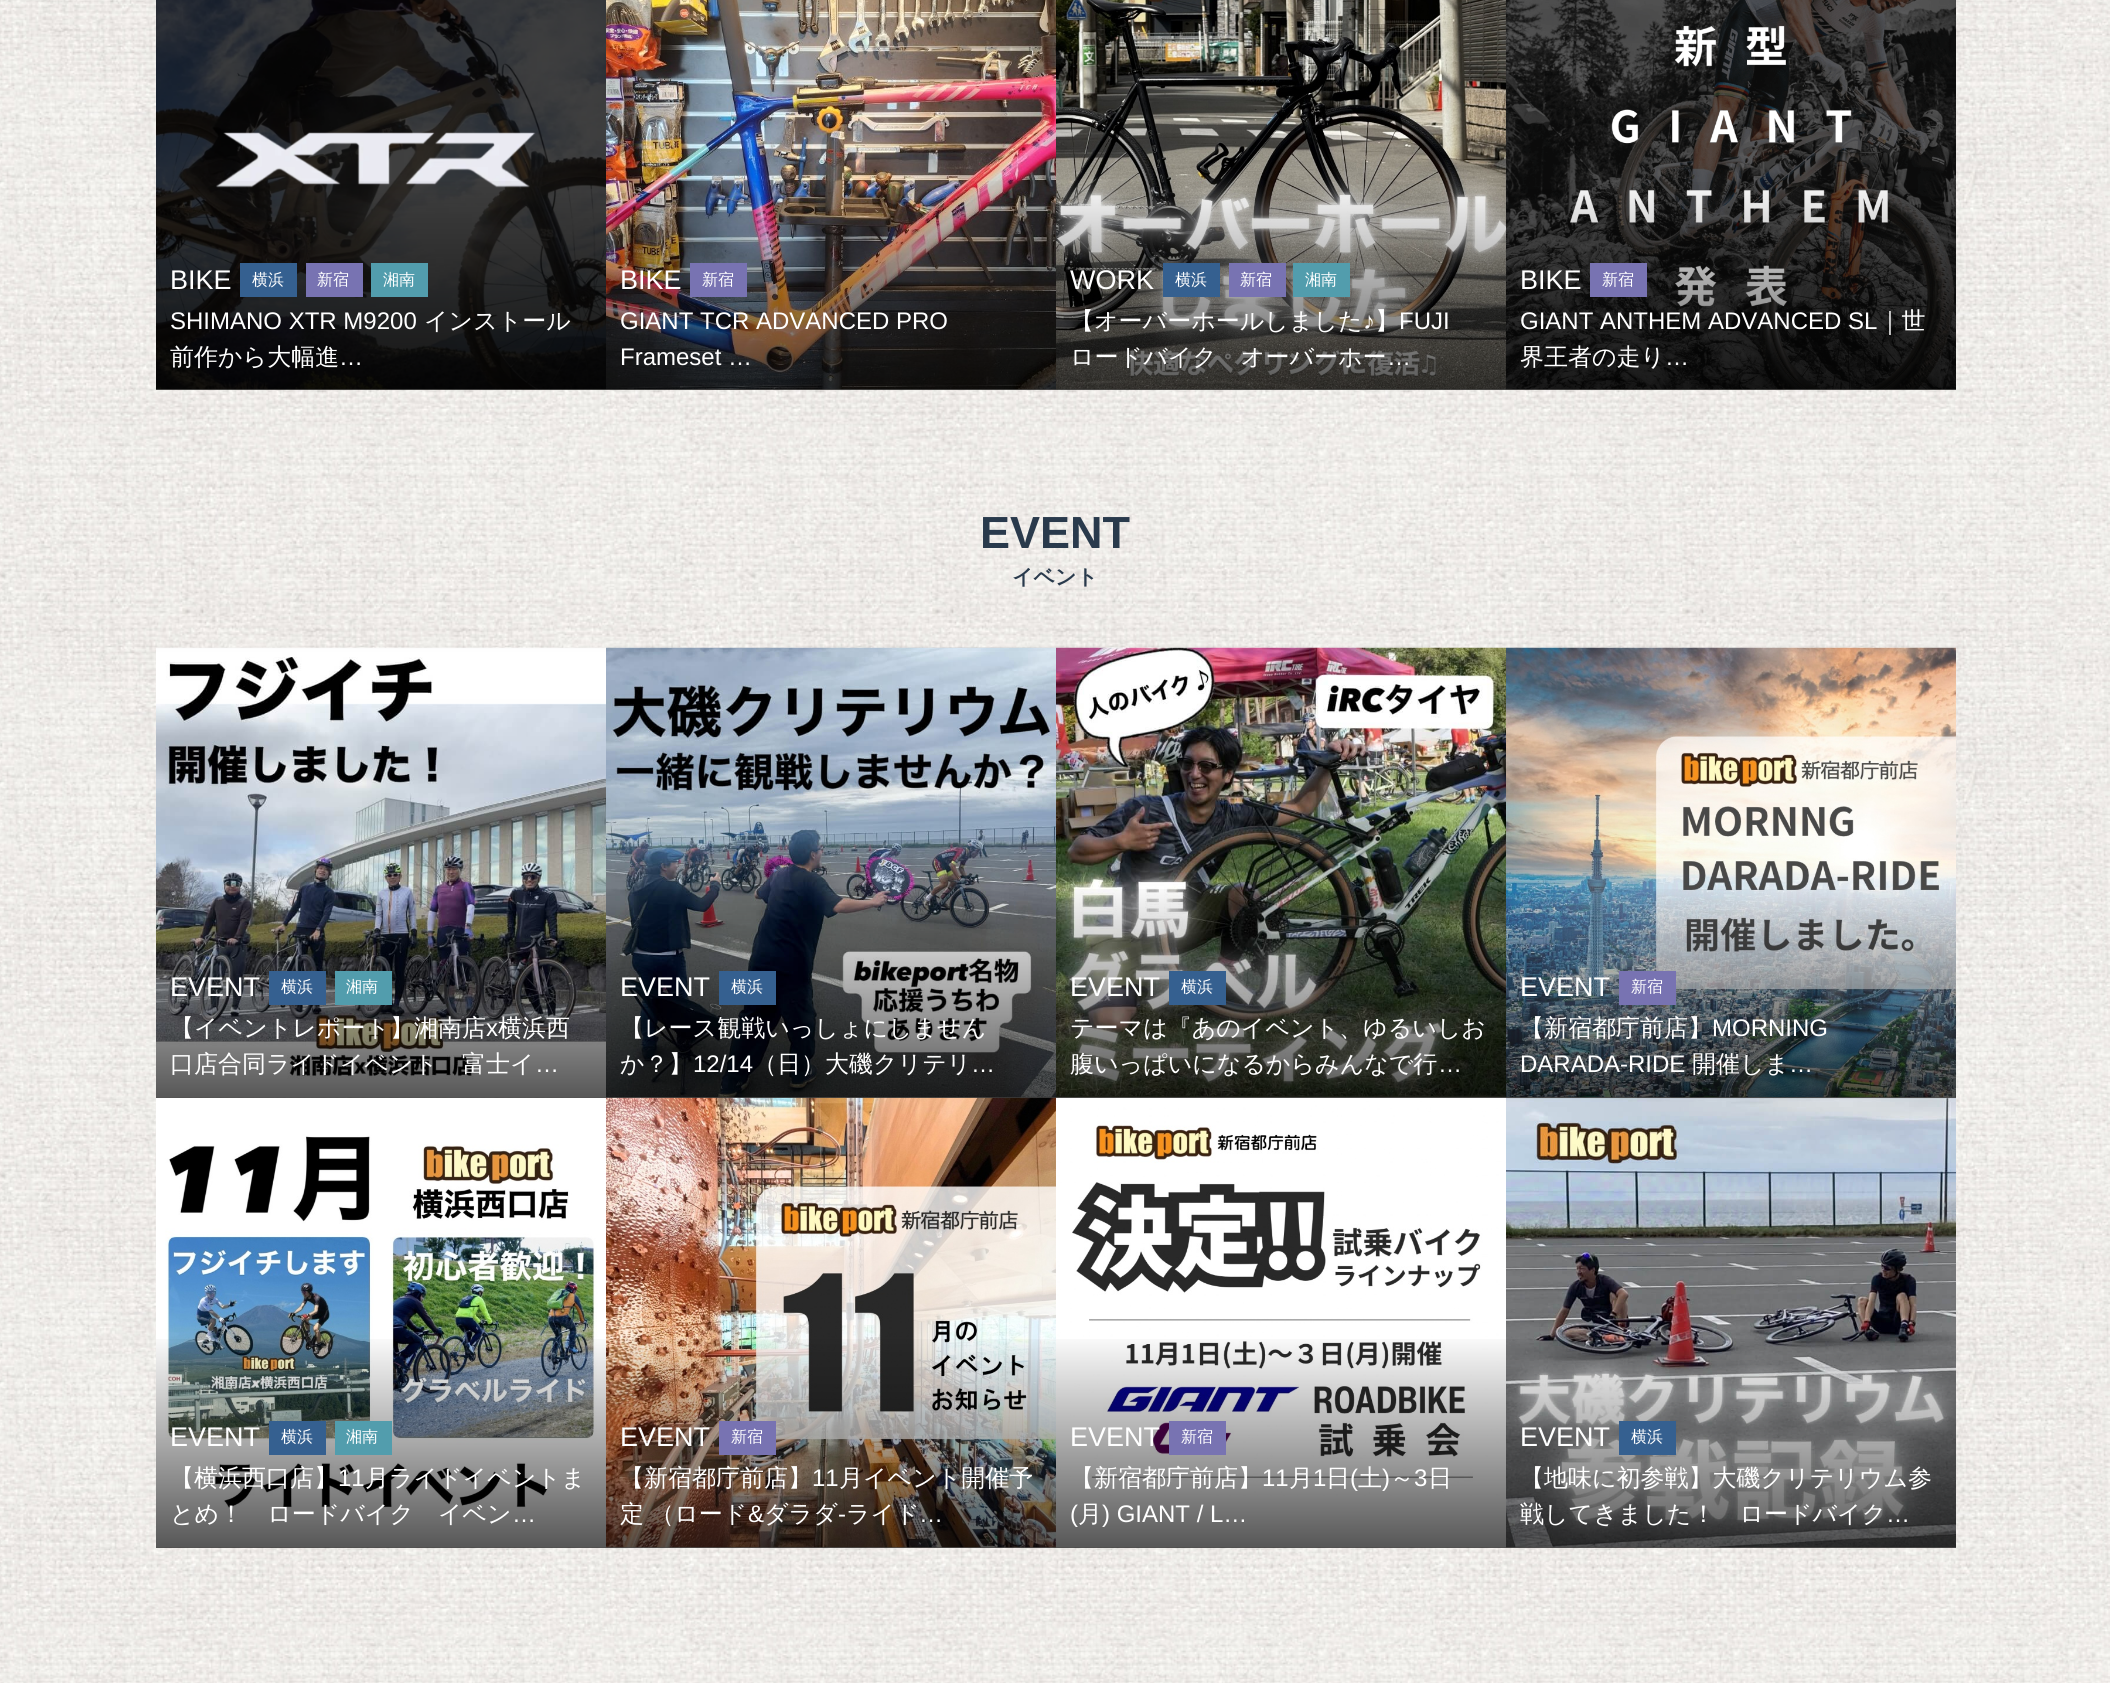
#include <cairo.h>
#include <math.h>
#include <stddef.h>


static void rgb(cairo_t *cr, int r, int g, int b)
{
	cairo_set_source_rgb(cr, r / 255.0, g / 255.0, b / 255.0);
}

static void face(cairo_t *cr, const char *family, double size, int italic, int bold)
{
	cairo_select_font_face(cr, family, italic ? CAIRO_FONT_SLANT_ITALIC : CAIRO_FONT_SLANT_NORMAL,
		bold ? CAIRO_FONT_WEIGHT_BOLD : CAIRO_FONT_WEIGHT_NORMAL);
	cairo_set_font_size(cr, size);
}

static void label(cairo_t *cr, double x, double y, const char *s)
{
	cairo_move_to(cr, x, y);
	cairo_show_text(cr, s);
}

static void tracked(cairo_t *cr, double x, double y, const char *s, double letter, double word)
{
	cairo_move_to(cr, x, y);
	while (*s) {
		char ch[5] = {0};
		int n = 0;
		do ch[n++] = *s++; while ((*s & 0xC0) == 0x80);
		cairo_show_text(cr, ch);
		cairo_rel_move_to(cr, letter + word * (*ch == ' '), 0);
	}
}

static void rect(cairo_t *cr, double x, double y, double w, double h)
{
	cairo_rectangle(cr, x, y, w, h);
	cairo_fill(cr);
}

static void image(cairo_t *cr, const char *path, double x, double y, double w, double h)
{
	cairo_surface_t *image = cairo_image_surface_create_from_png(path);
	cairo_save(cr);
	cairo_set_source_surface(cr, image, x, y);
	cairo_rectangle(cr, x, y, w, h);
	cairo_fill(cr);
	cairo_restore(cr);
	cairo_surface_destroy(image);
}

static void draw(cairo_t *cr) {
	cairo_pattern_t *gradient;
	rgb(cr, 255, 255, 255);
	cairo_paint(cr);
	image(cr, "image0.png", 0, 0, 2110, 1683);
	image(cr, "image1.png", 156, 0, 450, 390);
	gradient = cairo_pattern_create_linear(381, -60, 381, 390);
	cairo_pattern_add_color_stop_rgba(gradient, 0.52, 0, 0, 0, 0);
	cairo_pattern_add_color_stop_rgba(gradient, 1, 0, 0, 0, 0.66);
	cairo_set_source(cr, gradient);
	cairo_pattern_destroy(gradient);
	rect(cr, 156, 181, 450, 209);
	face(cr, "Liberation Sans", 27, 0, 0);
	rgb(cr, 255, 255, 255);
	label(cr, 170, 289, "BIKE");
	rgb(cr, 53, 96, 144);
	rect(cr, 240, 263, 57, 34);
	face(cr, "WenQuanYi Zen Hei Medium", 16, 0, 0);
	rgb(cr, 255, 255, 255);
	label(cr, 252, 285, "横浜");
	rgb(cr, 120, 115, 178);
	rect(cr, 306, 263, 57, 34);
	rgb(cr, 255, 255, 255);
	label(cr, 317, 285, "新宿");
	rgb(cr, 82, 157, 173);
	rect(cr, 371, 263, 57, 34);
	rgb(cr, 255, 255, 255);
	label(cr, 383, 285, "湘南");
	face(cr, "Liberation Sans", 24, 0, 0);
	label(cr, 170, 329, "SHIMANO XTR M9200");
	face(cr, "WenQuanYi Zen Hei Medium", 24, 0, 0);
	label(cr, 424, 329, "インストール");
	label(cr, 170, 365, "前作から大幅進");
	face(cr, "Liberation Sans", 24, 0, 0);
	label(cr, 339, 365, "…");
	image(cr, "image2.png", 606, 0, 450, 390);
	gradient = cairo_pattern_create_linear(831, -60, 831, 390);
	cairo_pattern_add_color_stop_rgba(gradient, 0.52, 0, 0, 0, 0);
	cairo_pattern_add_color_stop_rgba(gradient, 1, 0, 0, 0, 0.66);
	cairo_set_source(cr, gradient);
	cairo_pattern_destroy(gradient);
	rect(cr, 606, 181, 450, 209);
	face(cr, "Liberation Sans", 27, 0, 0);
	rgb(cr, 255, 255, 255);
	label(cr, 620, 289, "BIKE");
	rgb(cr, 120, 115, 178);
	rect(cr, 690, 263, 57, 34);
	face(cr, "WenQuanYi Zen Hei Medium", 16, 0, 0);
	rgb(cr, 255, 255, 255);
	label(cr, 702, 285, "新宿");
	face(cr, "Liberation Sans", 24, 0, 0);
	label(cr, 620, 329, "GIANT TCR ADVANCED PRO");
	label(cr, 620, 365, "Frameset …");
	image(cr, "image3.png", 1056, 0, 450, 390);
	gradient = cairo_pattern_create_linear(1281, -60, 1281, 390);
	cairo_pattern_add_color_stop_rgba(gradient, 0.52, 0, 0, 0, 0);
	cairo_pattern_add_color_stop_rgba(gradient, 1, 0, 0, 0, 0.66);
	cairo_set_source(cr, gradient);
	cairo_pattern_destroy(gradient);
	rect(cr, 1056, 181, 450, 209);
	face(cr, "Liberation Sans", 27, 0, 0);
	rgb(cr, 255, 255, 255);
	label(cr, 1070, 289, "WORK");
	rgb(cr, 53, 96, 144);
	rect(cr, 1163, 263, 57, 34);
	face(cr, "WenQuanYi Zen Hei Medium", 16, 0, 0);
	rgb(cr, 255, 255, 255);
	label(cr, 1175, 285, "横浜");
	rgb(cr, 120, 115, 178);
	rect(cr, 1229, 263, 57, 34);
	rgb(cr, 255, 255, 255);
	label(cr, 1240, 285, "新宿");
	rgb(cr, 82, 157, 173);
	rect(cr, 1293, 263, 57, 34);
	rgb(cr, 255, 255, 255);
	label(cr, 1305, 285, "湘南");
	face(cr, "WenQuanYi Zen Hei Medium", 24, 0, 0);
	label(cr, 1070, 329, "【オーバーホールしました");
	face(cr, "Liberation Sans", 24, 0, 0);
	label(cr, 1363, 329, "♪");
	face(cr, "WenQuanYi Zen Hei Medium", 24, 0, 0);
	label(cr, 1375, 329, "】");
	face(cr, "Liberation Sans", 24, 0, 0);
	label(cr, 1399, 329, "FUJI");
	face(cr, "WenQuanYi Zen Hei Medium", 24, 0, 0);
	label(cr, 1070, 365, "ロードバイク　オーバーホー");
	face(cr, "Liberation Sans", 24, 0, 0);
	label(cr, 1387, 365, "…");
	image(cr, "image4.png", 1506, 0, 450, 390);
	gradient = cairo_pattern_create_linear(1731, -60, 1731, 390);
	cairo_pattern_add_color_stop_rgba(gradient, 0.52, 0, 0, 0, 0);
	cairo_pattern_add_color_stop_rgba(gradient, 1, 0, 0, 0, 0.66);
	cairo_set_source(cr, gradient);
	cairo_pattern_destroy(gradient);
	rect(cr, 1506, 182, 450, 208);
	face(cr, "Liberation Sans", 27, 0, 0);
	rgb(cr, 255, 255, 255);
	label(cr, 1520, 289, "BIKE");
	rgb(cr, 120, 115, 178);
	rect(cr, 1590, 263, 57, 34);
	face(cr, "WenQuanYi Zen Hei Medium", 16, 0, 0);
	rgb(cr, 255, 255, 255);
	label(cr, 1602, 285, "新宿");
	face(cr, "Liberation Sans", 24, 0, 0);
	label(cr, 1520, 329, "GIANT ANTHEM ADVANCED SL");
	face(cr, "WenQuanYi Zen Hei Medium", 24, 0, 0);
	label(cr, 1878, 329, "｜世");
	label(cr, 1520, 365, "界王者の走り");
	face(cr, "Liberation Sans", 24, 0, 0);
	label(cr, 1665, 365, "…");
	face(cr, "Liberation Sans", 45, 0, 1);
	rgb(cr, 41, 58, 76);
	label(cr, 980, 548, "EVENT");
	face(cr, "WenQuanYi Zen Hei", 21, 0, 1);
	label(cr, 1012, 584, "イベント");
	image(cr, "image5.png", 156, 647, 450, 451);
	image(cr, "image9.png", 156, 1097, 450, 451);
	gradient = cairo_pattern_create_linear(381, 648, 381, 1098);
	cairo_pattern_add_color_stop_rgba(gradient, 0.52, 0, 0, 0, 0);
	cairo_pattern_add_color_stop_rgba(gradient, 1, 0, 0, 0, 0.66);
	cairo_set_source(cr, gradient);
	cairo_pattern_destroy(gradient);
	rect(cr, 156, 889, 450, 209);
	face(cr, "Liberation Sans", 27, 0, 0);
	rgb(cr, 255, 255, 255);
	label(cr, 170, 996, "EVENT");
	rgb(cr, 53, 96, 144);
	rect(cr, 269, 971, 57, 34);
	face(cr, "WenQuanYi Zen Hei Medium", 16, 0, 0);
	rgb(cr, 255, 255, 255);
	label(cr, 281, 992, "横浜");
	rgb(cr, 82, 157, 173);
	rect(cr, 335, 971, 57, 34);
	rgb(cr, 255, 255, 255);
	label(cr, 346, 992, "湘南");
	face(cr, "WenQuanYi Zen Hei Medium", 24, 0, 0);
	label(cr, 170, 1036, "【イベントレポート】湘南店");
	face(cr, "Liberation Sans", 24, 0, 0);
	label(cr, 486, 1036, "x");
	face(cr, "WenQuanYi Zen Hei Medium", 24, 0, 0);
	label(cr, 498, 1036, "横浜西");
	label(cr, 170, 1072, "口店合同ライドイベント　富士イ");
	face(cr, "Liberation Sans", 24, 0, 0);
	label(cr, 535, 1072, "…");
	image(cr, "image6.png", 606, 647, 450, 451);
	image(cr, "image10.png", 606, 1097, 450, 451);
	gradient = cairo_pattern_create_linear(831, 648, 831, 1098);
	cairo_pattern_add_color_stop_rgba(gradient, 0.52, 0, 0, 0, 0);
	cairo_pattern_add_color_stop_rgba(gradient, 1, 0, 0, 0, 0.66);
	cairo_set_source(cr, gradient);
	cairo_pattern_destroy(gradient);
	rect(cr, 606, 889, 450, 209);
	face(cr, "Liberation Sans", 27, 0, 0);
	rgb(cr, 255, 255, 255);
	label(cr, 620, 996, "EVENT");
	rgb(cr, 53, 96, 144);
	rect(cr, 719, 971, 57, 34);
	face(cr, "WenQuanYi Zen Hei Medium", 16, 0, 0);
	rgb(cr, 255, 255, 255);
	label(cr, 731, 992, "横浜");
	face(cr, "WenQuanYi Zen Hei Medium", 24, 0, 0);
	label(cr, 620, 1036, "【レース観戦いっしょにしません");
	label(cr, 620, 1072, "か？】");
	face(cr, "Liberation Sans", 24, 0, 0);
	label(cr, 693, 1072, "12/14");
	face(cr, "WenQuanYi Zen Hei Medium", 24, 0, 0);
	label(cr, 753, 1072, "（日）大磯クリテリ");
	face(cr, "Liberation Sans", 24, 0, 0);
	label(cr, 971, 1072, "…");
	image(cr, "image7.png", 1056, 647, 450, 451);
	image(cr, "image11.png", 1056, 1097, 450, 451);
	gradient = cairo_pattern_create_linear(1281, 648, 1281, 1098);
	cairo_pattern_add_color_stop_rgba(gradient, 0.52, 0, 0, 0, 0);
	cairo_pattern_add_color_stop_rgba(gradient, 1, 0, 0, 0, 0.66);
	cairo_set_source(cr, gradient);
	cairo_pattern_destroy(gradient);
	rect(cr, 1056, 889, 450, 209);
	face(cr, "Liberation Sans", 27, 0, 0);
	rgb(cr, 255, 255, 255);
	label(cr, 1070, 996, "EVENT");
	rgb(cr, 53, 96, 144);
	rect(cr, 1169, 971, 57, 34);
	face(cr, "WenQuanYi Zen Hei Medium", 16, 0, 0);
	rgb(cr, 255, 255, 255);
	label(cr, 1181, 992, "横浜");
	face(cr, "WenQuanYi Zen Hei Medium", 24, 0, 0);
	label(cr, 1070, 1036, "テーマは『あのイベント、ゆるいしお");
	label(cr, 1070, 1072, "腹いっぱいになるからみんなで行");
	face(cr, "Liberation Sans", 24, 0, 0);
	label(cr, 1438, 1072, "…");
	image(cr, "image8.png", 1506, 647, 450, 451);
	image(cr, "image12.png", 1506, 1097, 450, 451);
	gradient = cairo_pattern_create_linear(1731, 648, 1731, 1098);
	cairo_pattern_add_color_stop_rgba(gradient, 0.52, 0, 0, 0, 0);
	cairo_pattern_add_color_stop_rgba(gradient, 1, 0, 0, 0, 0.66);
	cairo_set_source(cr, gradient);
	cairo_pattern_destroy(gradient);
	rect(cr, 1506, 889, 450, 209);
	face(cr, "Liberation Sans", 27, 0, 0);
	rgb(cr, 255, 255, 255);
	label(cr, 1520, 996, "EVENT");
	rgb(cr, 120, 115, 178);
	rect(cr, 1619, 971, 57, 34);
	face(cr, "WenQuanYi Zen Hei Medium", 16, 0, 0);
	rgb(cr, 255, 255, 255);
	label(cr, 1631, 992, "新宿");
	face(cr, "WenQuanYi Zen Hei Medium", 24, 0, 0);
	label(cr, 1520, 1036, "【新宿都庁前店】");
	face(cr, "Liberation Sans", 24, 0, 0);
	label(cr, 1712, 1036, "MORNING");
	label(cr, 1520, 1072, "DARADA-RIDE");
	face(cr, "WenQuanYi Zen Hei Medium", 24, 0, 0);
	label(cr, 1692, 1072, "開催しま");
	face(cr, "Liberation Sans", 24, 0, 0);
	label(cr, 1789, 1072, "…");
	gradient = cairo_pattern_create_linear(381, 1098, 381, 1548);
	cairo_pattern_add_color_stop_rgba(gradient, 0.52, 0, 0, 0, 0);
	cairo_pattern_add_color_stop_rgba(gradient, 1, 0, 0, 0, 0.66);
	cairo_set_source(cr, gradient);
	cairo_pattern_destroy(gradient);
	rect(cr, 156, 1339, 450, 209);
	face(cr, "Liberation Sans", 27, 0, 0);
	rgb(cr, 255, 255, 255);
	label(cr, 170, 1446, "EVENT");
	rgb(cr, 53, 96, 144);
	rect(cr, 269, 1421, 57, 34);
	face(cr, "WenQuanYi Zen Hei Medium", 16, 0, 0);
	rgb(cr, 255, 255, 255);
	label(cr, 281, 1442, "横浜");
	rgb(cr, 82, 157, 173);
	rect(cr, 335, 1421, 57, 34);
	rgb(cr, 255, 255, 255);
	label(cr, 346, 1442, "湘南");
	face(cr, "WenQuanYi Zen Hei Medium", 24, 0, 0);
	label(cr, 170, 1486, "【横浜西口店】");
	face(cr, "Liberation Sans", 24, 0, 0);
	label(cr, 338, 1486, "11");
	face(cr, "WenQuanYi Zen Hei Medium", 24, 0, 0);
	label(cr, 365, 1486, "月ライドイベントま");
	label(cr, 170, 1522, "とめ！　ロードバイク　イベン");
	face(cr, "Liberation Sans", 24, 0, 0);
	label(cr, 512, 1522, "…");
	gradient = cairo_pattern_create_linear(831, 1098, 831, 1548);
	cairo_pattern_add_color_stop_rgba(gradient, 0.52, 0, 0, 0, 0);
	cairo_pattern_add_color_stop_rgba(gradient, 1, 0, 0, 0, 0.66);
	cairo_set_source(cr, gradient);
	cairo_pattern_destroy(gradient);
	rect(cr, 606, 1339, 450, 209);
	face(cr, "Liberation Sans", 27, 0, 0);
	rgb(cr, 255, 255, 255);
	label(cr, 620, 1446, "EVENT");
	rgb(cr, 120, 115, 178);
	rect(cr, 719, 1421, 57, 34);
	face(cr, "WenQuanYi Zen Hei Medium", 16, 0, 0);
	rgb(cr, 255, 255, 255);
	label(cr, 731, 1442, "新宿");
	face(cr, "WenQuanYi Zen Hei Medium", 24, 0, 0);
	label(cr, 620, 1486, "【新宿都庁前店】");
	face(cr, "Liberation Sans", 24, 0, 0);
	label(cr, 812, 1486, "11");
	face(cr, "WenQuanYi Zen Hei Medium", 24, 0, 0);
	label(cr, 839, 1486, "月イベント開催予");
	tracked(cr, 620, 1522, "定 （ロード", 0, -1);
	face(cr, "Liberation Sans", 24, 0, 0);
	label(cr, 748, 1522, "&");
	face(cr, "WenQuanYi Zen Hei Medium", 24, 0, 0);
	label(cr, 764, 1522, "ダラダ");
	face(cr, "Liberation Sans", 24, 0, 0);
	label(cr, 838, 1522, "‐");
	face(cr, "WenQuanYi Zen Hei Medium", 24, 0, 0);
	label(cr, 846, 1522, "ライド");
	face(cr, "Liberation Sans", 24, 0, 0);
	label(cr, 919, 1522, "…");
	gradient = cairo_pattern_create_linear(1281, 1098, 1281, 1548);
	cairo_pattern_add_color_stop_rgba(gradient, 0.52, 0, 0, 0, 0);
	cairo_pattern_add_color_stop_rgba(gradient, 1, 0, 0, 0, 0.66);
	cairo_set_source(cr, gradient);
	cairo_pattern_destroy(gradient);
	rect(cr, 1056, 1339, 450, 209);
	face(cr, "Liberation Sans", 27, 0, 0);
	rgb(cr, 255, 255, 255);
	label(cr, 1070, 1446, "EVENT");
	rgb(cr, 120, 115, 178);
	rect(cr, 1169, 1421, 57, 34);
	face(cr, "WenQuanYi Zen Hei Medium", 16, 0, 0);
	rgb(cr, 255, 255, 255);
	label(cr, 1181, 1442, "新宿");
	face(cr, "WenQuanYi Zen Hei Medium", 24, 0, 0);
	label(cr, 1070, 1486, "【新宿都庁前店】");
	face(cr, "Liberation Sans", 24, 0, 0);
	label(cr, 1262, 1486, "11");
	face(cr, "WenQuanYi Zen Hei Medium", 24, 0, 0);
	label(cr, 1289, 1486, "月");
	face(cr, "Liberation Sans", 24, 0, 0);
	label(cr, 1313, 1486, "1");
	face(cr, "WenQuanYi Zen Hei Medium", 24, 0, 0);
	label(cr, 1326, 1486, "日");
	face(cr, "Liberation Sans", 24, 0, 0);
	label(cr, 1350, 1486, "(");
	face(cr, "WenQuanYi Zen Hei Medium", 24, 0, 0);
	label(cr, 1358, 1486, "土");
	face(cr, "Liberation Sans", 24, 0, 0);
	label(cr, 1382, 1486, ")");
	face(cr, "WenQuanYi Zen Hei Medium", 24, 0, 0);
	label(cr, 1390, 1486, "～");
	face(cr, "Liberation Sans", 24, 0, 0);
	label(cr, 1414, 1486, "3");
	face(cr, "WenQuanYi Zen Hei Medium", 24, 0, 0);
	label(cr, 1428, 1486, "日");
	face(cr, "Liberation Sans", 24, 0, 0);
	label(cr, 1070, 1522, "(");
	face(cr, "WenQuanYi Zen Hei Medium", 24, 0, 0);
	label(cr, 1078, 1522, "月");
	face(cr, "Liberation Sans", 24, 0, 0);
	label(cr, 1102, 1522, ") GIANT / L…");
	gradient = cairo_pattern_create_linear(1731, 1098, 1731, 1548);
	cairo_pattern_add_color_stop_rgba(gradient, 0.52, 0, 0, 0, 0);
	cairo_pattern_add_color_stop_rgba(gradient, 1, 0, 0, 0, 0.66);
	cairo_set_source(cr, gradient);
	cairo_pattern_destroy(gradient);
	rect(cr, 1506, 1339, 450, 209);
	face(cr, "Liberation Sans", 27, 0, 0);
	rgb(cr, 255, 255, 255);
	label(cr, 1520, 1446, "EVENT");
	rgb(cr, 53, 96, 144);
	rect(cr, 1619, 1421, 57, 34);
	face(cr, "WenQuanYi Zen Hei Medium", 16, 0, 0);
	rgb(cr, 255, 255, 255);
	label(cr, 1631, 1442, "横浜");
	face(cr, "WenQuanYi Zen Hei Medium", 24, 0, 0);
	label(cr, 1520, 1486, "【地味に初参戦】大磯クリテリウム参");
	label(cr, 1520, 1522, "戦してきました！　ロードバイク");
	face(cr, "Liberation Sans", 24, 0, 0);
	label(cr, 1886, 1522, "…");
}

int main(void) {
	cairo_surface_t *surface = cairo_image_surface_create(CAIRO_FORMAT_RGB24, 2110, 1683);
	cairo_t *cr = cairo_create(surface);
	cairo_font_options_t *options = cairo_font_options_create();
	cairo_font_options_set_hint_metrics(options, CAIRO_HINT_METRICS_OFF);
	cairo_font_options_set_hint_style(options, CAIRO_HINT_STYLE_NONE);
	cairo_set_font_options(cr, options);
	cairo_set_miter_limit(cr, 4);
	draw(cr);
	cairo_surface_write_to_png(surface, "render.png");
	cairo_font_options_destroy(options);
	cairo_destroy(cr);
	cairo_surface_destroy(surface);
	return 0;
}
